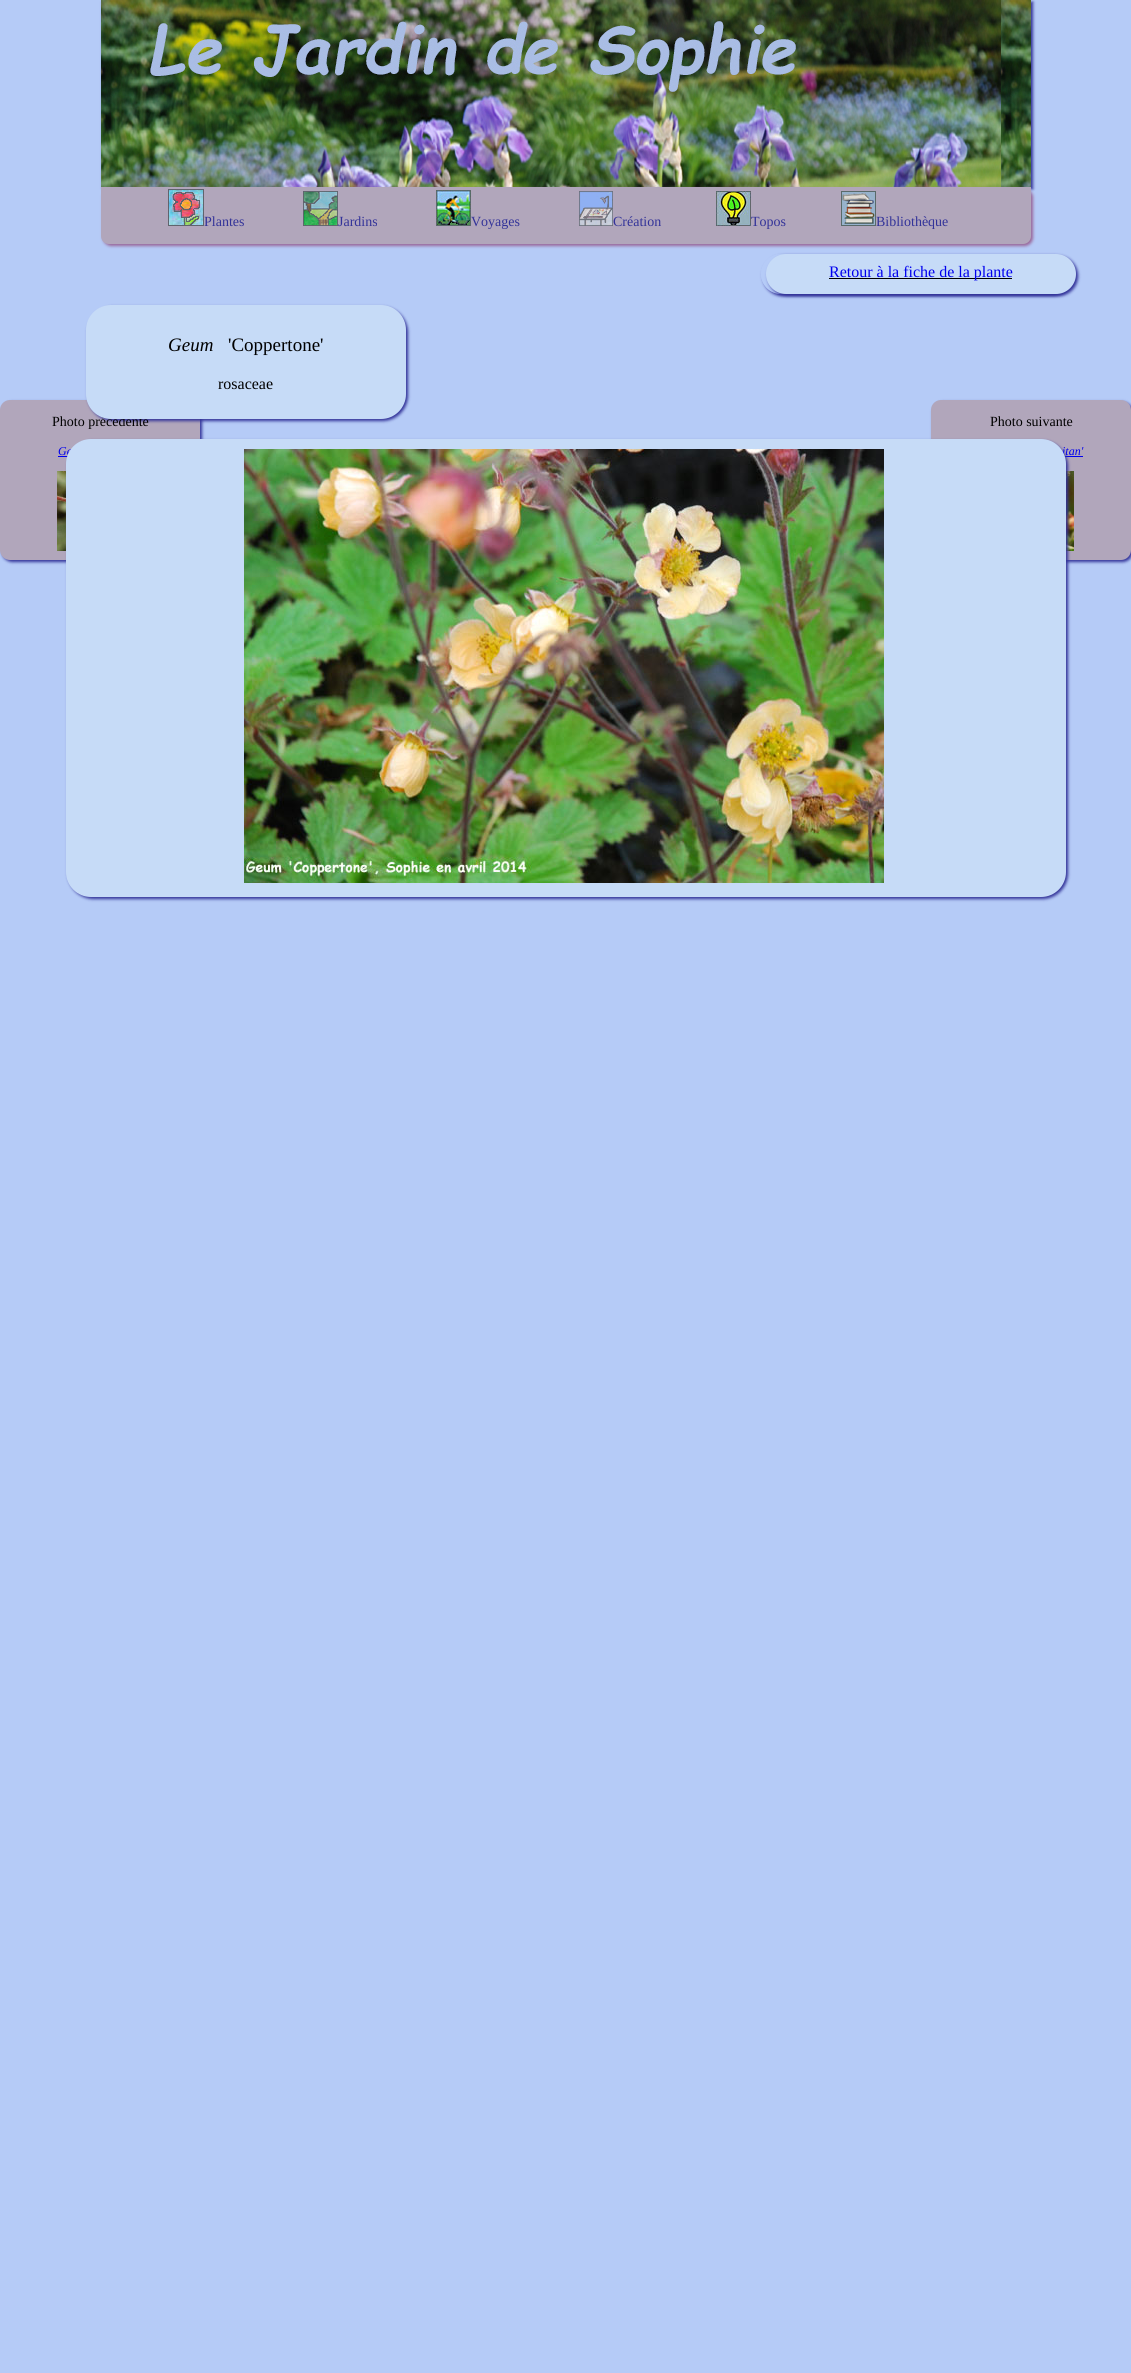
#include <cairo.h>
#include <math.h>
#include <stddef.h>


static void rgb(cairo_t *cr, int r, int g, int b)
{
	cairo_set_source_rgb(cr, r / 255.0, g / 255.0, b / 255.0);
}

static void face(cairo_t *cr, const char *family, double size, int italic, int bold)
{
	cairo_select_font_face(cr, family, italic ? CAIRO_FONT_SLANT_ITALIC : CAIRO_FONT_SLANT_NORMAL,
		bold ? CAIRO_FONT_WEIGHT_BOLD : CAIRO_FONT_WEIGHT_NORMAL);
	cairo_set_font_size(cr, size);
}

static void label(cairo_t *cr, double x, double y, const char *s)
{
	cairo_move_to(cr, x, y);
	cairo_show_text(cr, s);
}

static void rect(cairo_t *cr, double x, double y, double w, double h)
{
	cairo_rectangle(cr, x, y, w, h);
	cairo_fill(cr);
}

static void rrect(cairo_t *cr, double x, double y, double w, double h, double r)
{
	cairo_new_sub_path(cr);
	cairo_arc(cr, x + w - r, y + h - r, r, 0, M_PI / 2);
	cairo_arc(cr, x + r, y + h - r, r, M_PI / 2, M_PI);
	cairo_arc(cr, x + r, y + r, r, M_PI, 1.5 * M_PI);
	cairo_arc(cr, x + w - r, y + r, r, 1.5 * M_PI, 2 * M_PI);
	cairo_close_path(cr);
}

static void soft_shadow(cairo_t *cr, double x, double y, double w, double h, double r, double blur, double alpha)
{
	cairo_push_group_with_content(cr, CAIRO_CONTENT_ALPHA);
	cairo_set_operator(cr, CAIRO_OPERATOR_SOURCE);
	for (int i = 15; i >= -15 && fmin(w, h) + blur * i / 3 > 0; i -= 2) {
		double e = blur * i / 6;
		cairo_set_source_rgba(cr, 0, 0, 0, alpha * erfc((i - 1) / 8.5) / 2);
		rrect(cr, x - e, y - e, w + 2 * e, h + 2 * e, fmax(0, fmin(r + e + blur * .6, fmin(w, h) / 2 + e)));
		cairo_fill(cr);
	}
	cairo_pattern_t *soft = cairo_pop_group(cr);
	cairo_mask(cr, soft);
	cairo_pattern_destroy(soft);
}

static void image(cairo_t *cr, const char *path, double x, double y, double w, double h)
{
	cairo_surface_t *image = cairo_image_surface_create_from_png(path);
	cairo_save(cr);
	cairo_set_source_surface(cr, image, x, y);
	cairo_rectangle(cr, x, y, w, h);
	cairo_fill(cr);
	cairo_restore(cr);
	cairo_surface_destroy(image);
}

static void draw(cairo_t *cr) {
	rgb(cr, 181, 203, 247);
	cairo_paint(cr);
	rgb(cr, 51, 51, 153);
	soft_shadow(cr, 103, 2, 930, 187, 0, 1.5, 1);
	image(cr, "image0.png", 101, 0, 930, 187);
	rgb(cr, 153, 102, 153);
	soft_shadow(cr, 103, 189, 930, 57, 8, 1.5, 1);
	rgb(cr, 177, 166, 187);
	cairo_new_path(cr);
	cairo_move_to(cr, 101, 187);
	cairo_line_to(cr, 1031, 187);
	cairo_line_to(cr, 1031, 236);
	cairo_curve_to(cr, 1031, 240.5, 1027.5, 244, 1023, 244);
	cairo_line_to(cr, 109, 244);
	cairo_curve_to(cr, 104.5, 244, 101, 240.5, 101, 236);
	cairo_close_path(cr);
	cairo_fill(cr);
	image(cr, "image1.png", 168, 189, 36, 37);
	face(cr, "Liberation Serif", 14, 0, 0);
	rgb(cr, 51, 51, 153);
	label(cr, 204, 226, "Plantes");
	image(cr, "image2.png", 303, 191, 35, 35);
	label(cr, 338, 226, "Jardins");
	image(cr, "image3.png", 436, 190, 35, 36);
	label(cr, 471, 226, "Voyages");
	image(cr, "image4.png", 579, 191, 34, 35);
	label(cr, 613, 226, "Création");
	image(cr, "image5.png", 716, 191, 35, 35);
	label(cr, 751, 226, "Topos");
	image(cr, "image6.png", 841, 191, 35, 35);
	label(cr, 876, 226, "Bibliothèque");
	cairo_save(cr);
	cairo_set_fill_rule(cr, CAIRO_FILL_RULE_EVEN_ODD);
	cairo_new_path(cr);
	cairo_move_to(cr, 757, 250);
	cairo_line_to(cr, 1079, 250);
	cairo_line_to(cr, 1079, 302);
	cairo_line_to(cr, 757, 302);
	cairo_close_path(cr);
	cairo_move_to(cr, 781, 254);
	cairo_line_to(cr, 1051, 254);
	cairo_curve_to(cr, 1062, 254, 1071, 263, 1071, 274);
	cairo_curve_to(cr, 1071, 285, 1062, 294, 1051, 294);
	cairo_line_to(cr, 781, 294);
	cairo_curve_to(cr, 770, 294, 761, 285, 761, 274);
	cairo_curve_to(cr, 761, 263, 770, 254, 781, 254);
	cairo_close_path(cr);
	cairo_clip(cr);
	rgb(cr, 51, 51, 153);
	soft_shadow(cr, 763, 256, 310, 40, 20, 1.5, 1);
	cairo_restore(cr);
	rgb(cr, 51, 51, 153);
	soft_shadow(cr, 768, 256, 310, 40, 20, 1.5, 1);
	rgb(cr, 198, 219, 247);
	rrect(cr, 766, 254, 310, 40, 20);
	cairo_fill(cr);
	rgb(cr, 0, 0, 0);
	rect(cr, 829, 278, 183, 1);
	face(cr, "Liberation Serif", 16, 0, 0);
	rgb(cr, 0, 0, 238);
	label(cr, 829, 277, "Retour à la fiche de la plante");
	rgb(cr, 51, 51, 153);
	soft_shadow(cr, 2, 402, 200, 160, 10, 1.5, 1);
	rgb(cr, 177, 166, 187);
	rrect(cr, 0, 400, 200, 160, 10);
	cairo_fill(cr);
	rgb(cr, 51, 51, 153);
	soft_shadow(cr, 88, 307, 320, 114, 25, 1.5, 1);
	face(cr, "Liberation Serif", 14, 0, 0);
	rgb(cr, 0, 0, 0);
	label(cr, 52, 426, "Photo précédente");
	rgb(cr, 198, 219, 247);
	rrect(cr, 86, 305, 320, 114, 25);
	cairo_fill(cr);
	face(cr, "Liberation Serif", 19, 1, 0);
	rgb(cr, 0, 0, 0);
	label(cr, 168, 351, "Geum");
	face(cr, "Liberation Serif", 19, 0, 0);
	label(cr, 228, 351, "'Coppertone'");
	face(cr, "Liberation Serif", 16, 0, 0);
	label(cr, 218, 389, "rosaceae");
	rgb(cr, 0, 0, 238);
	rect(cr, 58, 456, 10, 1);
	image(cr, "image8.png", 57, 471, 9, 80);
	rgb(cr, 51, 51, 153);
	soft_shadow(cr, 933, 402, 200, 160, 10, 1.5, 1);
	rgb(cr, 177, 166, 187);
	rrect(cr, 931, 400, 200, 160, 10);
	cairo_fill(cr);
	rgb(cr, 0, 0, 238);
	rect(cr, 1064, 456, 19, 1);
	image(cr, "image9.png", 1066, 471, 8, 80);
	rgb(cr, 51, 51, 153);
	soft_shadow(cr, 68, 441, 1000, 458, 25, 1.5, 1);
	face(cr, "Liberation Serif", 12, 1, 0);
	rgb(cr, 0, 0, 238);
	label(cr, 58, 455, "Ge");
	label(cr, 1062, 455, "itan'");
	rgb(cr, 198, 219, 247);
	rrect(cr, 66, 439, 1000, 458, 25);
	cairo_fill(cr);
	image(cr, "image7.png", 244, 449, 640, 434);
	face(cr, "Liberation Serif", 14, 0, 0);
	rgb(cr, 0, 0, 0);
	label(cr, 990, 426, "Photo suivante");
}

int main(void) {
	cairo_surface_t *surface = cairo_image_surface_create(CAIRO_FORMAT_RGB24, 1131, 2373);
	cairo_t *cr = cairo_create(surface);
	cairo_font_options_t *options = cairo_font_options_create();
	cairo_font_options_set_hint_metrics(options, CAIRO_HINT_METRICS_OFF);
	cairo_font_options_set_hint_style(options, CAIRO_HINT_STYLE_NONE);
	cairo_set_font_options(cr, options);
	cairo_set_miter_limit(cr, 4);
	draw(cr);
	cairo_surface_write_to_png(surface, "render.png");
	cairo_font_options_destroy(options);
	cairo_destroy(cr);
	cairo_surface_destroy(surface);
	return 0;
}
